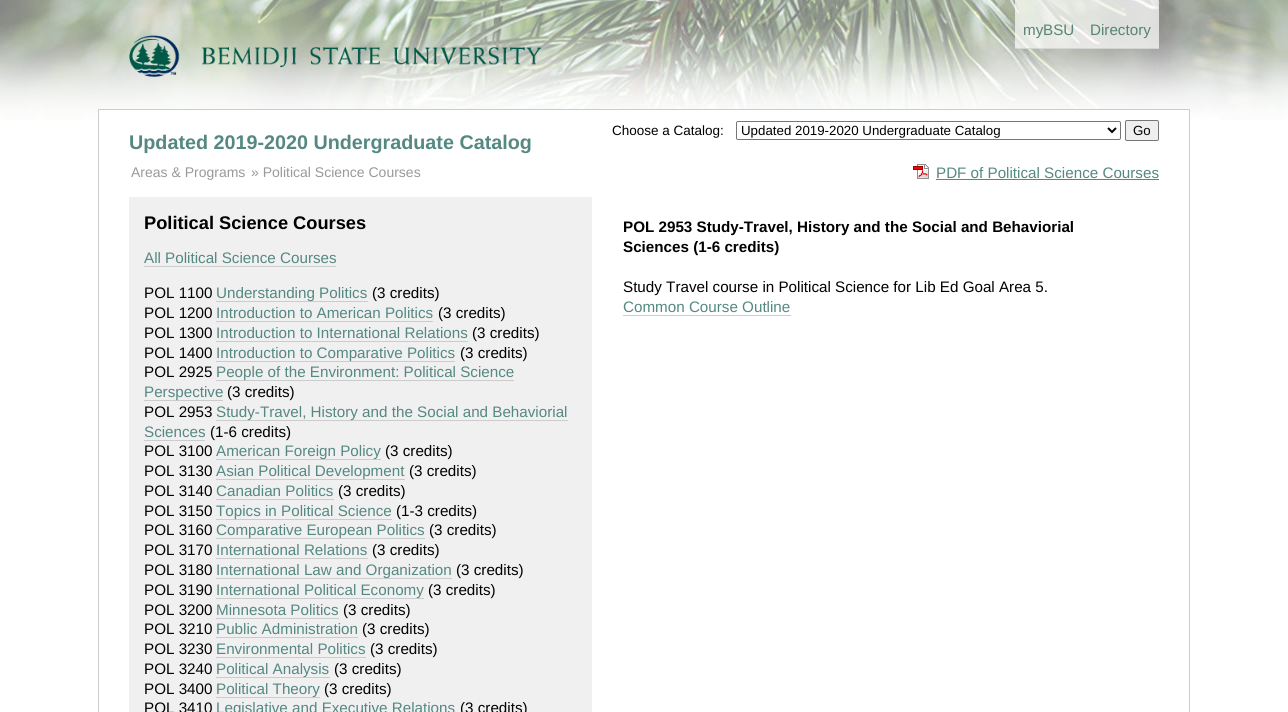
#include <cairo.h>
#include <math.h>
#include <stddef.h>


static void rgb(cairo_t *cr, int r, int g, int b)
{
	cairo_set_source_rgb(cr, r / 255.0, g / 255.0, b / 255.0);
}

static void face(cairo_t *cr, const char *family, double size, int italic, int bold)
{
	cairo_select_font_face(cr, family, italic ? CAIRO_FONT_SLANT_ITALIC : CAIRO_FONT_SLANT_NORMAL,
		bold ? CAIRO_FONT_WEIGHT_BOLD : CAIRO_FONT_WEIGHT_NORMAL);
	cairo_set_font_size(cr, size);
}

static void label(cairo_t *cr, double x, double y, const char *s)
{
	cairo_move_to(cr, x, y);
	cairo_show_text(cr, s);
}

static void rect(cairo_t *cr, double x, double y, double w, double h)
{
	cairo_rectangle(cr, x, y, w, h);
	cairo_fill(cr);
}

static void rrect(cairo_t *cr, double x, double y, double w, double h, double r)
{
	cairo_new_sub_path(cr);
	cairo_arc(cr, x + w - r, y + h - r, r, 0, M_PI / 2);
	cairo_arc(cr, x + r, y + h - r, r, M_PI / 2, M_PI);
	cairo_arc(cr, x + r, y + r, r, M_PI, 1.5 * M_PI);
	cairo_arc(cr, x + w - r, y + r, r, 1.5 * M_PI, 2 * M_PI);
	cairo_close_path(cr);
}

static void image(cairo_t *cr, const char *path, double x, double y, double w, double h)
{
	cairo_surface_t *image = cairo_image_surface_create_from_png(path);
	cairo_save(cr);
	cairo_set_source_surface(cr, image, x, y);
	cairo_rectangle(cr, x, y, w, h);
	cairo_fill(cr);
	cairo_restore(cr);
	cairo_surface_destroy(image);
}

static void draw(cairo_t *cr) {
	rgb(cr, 255, 255, 255);
	cairo_paint(cr);
	image(cr, "image0.png", 0, 0, 1288, 120);
	cairo_set_source_rgba(cr, 1, 1, 1, 0.7);
	rect(cr, 1015, 0, 67, 49);
	cairo_set_source_rgba(cr, 0.8, 0.8, 0.8, 0.7);
	rect(cr, 1015, 48, 67, 1);
	face(cr, "Liberation Sans", 15.2, 0, 0);
	rgb(cr, 86, 132, 118);
	label(cr, 1023, 35, "my");
	label(cr, 1043, 35, "BSU");
	cairo_set_source_rgba(cr, 1, 1, 1, 0.7);
	rect(cr, 1082, 0, 77, 49);
	cairo_set_source_rgba(cr, 0.8, 0.8, 0.8, 0.7);
	rect(cr, 1082, 48, 77, 1);
	rgb(cr, 86, 132, 118);
	label(cr, 1090, 35, "Directory");
	image(cr, "image1.png", 129, 35, 413, 42);
	rgb(cr, 255, 255, 255);
	rect(cr, 99, 110, 1090, 10);
	cairo_rectangle(cr, 98.5, 109.5, 1091, 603);
	rgb(cr, 204, 204, 204);
	cairo_set_line_width(cr, 1);
	cairo_stroke(cr);
	face(cr, "Liberation Sans", 13.5, 0, 0);
	rgb(cr, 0, 0, 0);
	label(cr, 612, 135, "Choose a Catalog:");
	rrect(cr, 736.5, 121.5, 384, 18, 1.5);
	rgb(cr, 118, 118, 118);
	cairo_stroke(cr);
	cairo_new_path(cr);
	cairo_move_to(cr, 1108, 128);
	cairo_line_to(cr, 1112, 132);
	cairo_line_to(cr, 1116, 128);
	rgb(cr, 0, 0, 0);
	cairo_set_line_width(cr, 2);
	cairo_stroke(cr);
	face(cr, "Liberation Sans", 13.3, 0, 0);
	label(cr, 741, 135, "Updated 2019-2020 Undergraduate Catalog");
	rgb(cr, 239, 239, 239);
	rrect(cr, 1125.5, 120.5, 33, 20, 1.5);
	cairo_fill_preserve(cr);
	rgb(cr, 118, 118, 118);
	cairo_set_line_width(cr, 1);
	cairo_stroke(cr);
	rgb(cr, 0, 0, 0);
	label(cr, 1133, 135, "Go");
	face(cr, "Liberation Sans", 19.75, 0, 1);
	rgb(cr, 85, 136, 130);
	label(cr, 129, 149, "Updated 2019-2020 Undergraduate Catalog");
	face(cr, "Liberation Sans", 14, 0, 0);
	rgb(cr, 153, 153, 153);
	label(cr, 131, 177, "Areas & Programs");
	label(cr, 251, 177, "» Political Science Courses");
	image(cr, "image2.png", 913, 164, 16, 15);
	face(cr, "Liberation Sans", 15.2, 0, 0);
	rgb(cr, 85, 136, 130);
	label(cr, 936, 178, "PDF of Political Science Courses");
	rect(cr, 936, 179, 223, 1);
	rgb(cr, 240, 240, 240);
	rect(cr, 129, 197, 463, 515);
	face(cr, "Liberation Sans", 18.25, 0, 1);
	rgb(cr, 0, 0, 0);
	label(cr, 144, 229, "Political Science Courses");
	face(cr, "Liberation Sans", 15.2, 0, 0);
	rgb(cr, 85, 136, 130);
	label(cr, 144, 263, "All Political Science Courses");
	rgb(cr, 204, 204, 204);
	rect(cr, 144, 266, 192, 1);
	rgb(cr, 0, 0, 0);
	label(cr, 144, 298, "POL 1100");
	rgb(cr, 204, 204, 204);
	rect(cr, 216, 301, 152, 1);
	rgb(cr, 85, 136, 130);
	label(cr, 216, 298, "Understanding Politics");
	rgb(cr, 0, 0, 0);
	label(cr, 372, 298, "(3 credits)");
	label(cr, 144, 318, "POL 1200");
	rgb(cr, 85, 136, 130);
	label(cr, 216, 318, "Introduction to American Politics");
	rgb(cr, 204, 204, 204);
	rect(cr, 216, 321, 217, 1);
	rgb(cr, 0, 0, 0);
	label(cr, 438, 318, "(3 credits)");
	label(cr, 144, 338, "POL 1300");
	rgb(cr, 85, 136, 130);
	label(cr, 216, 338, "Introduction to International Relations");
	rgb(cr, 204, 204, 204);
	rect(cr, 216, 341, 252, 1);
	rgb(cr, 0, 0, 0);
	label(cr, 472, 338, "(3 credits)");
	label(cr, 144, 358, "POL 1400");
	rgb(cr, 204, 204, 204);
	rect(cr, 216, 361, 239, 1);
	rgb(cr, 85, 136, 130);
	label(cr, 216, 358, "Introduction to Comparative Politics");
	rgb(cr, 0, 0, 0);
	label(cr, 460, 358, "(3 credits)");
	label(cr, 144, 377, "POL 2925");
	rgb(cr, 204, 204, 204);
	rect(cr, 216, 380, 298, 1);
	rgb(cr, 85, 136, 130);
	label(cr, 216, 377, "People of the Environment: Political Science");
	rgb(cr, 204, 204, 204);
	rect(cr, 144, 400, 79, 1);
	rgb(cr, 85, 136, 130);
	label(cr, 144, 397, "Perspective");
	rgb(cr, 0, 0, 0);
	label(cr, 227, 397, "(3 credits)");
	label(cr, 144, 417, "POL 2953");
	rgb(cr, 204, 204, 204);
	rect(cr, 216, 420, 352, 1);
	rgb(cr, 85, 136, 130);
	label(cr, 216, 417, "Study-Travel, History and the Social and Behaviorial");
	label(cr, 144, 437, "Sciences");
	rgb(cr, 204, 204, 204);
	rect(cr, 144, 440, 61, 1);
	rgb(cr, 0, 0, 0);
	label(cr, 210, 437, "(1-6 credits)");
	label(cr, 144, 456, "POL 3100");
	rgb(cr, 204, 204, 204);
	rect(cr, 216, 459, 165, 1);
	rgb(cr, 85, 136, 130);
	label(cr, 216, 456, "American Foreign Policy");
	rgb(cr, 0, 0, 0);
	label(cr, 385, 456, "(3 credits)");
	label(cr, 144, 476, "POL 3130");
	rgb(cr, 204, 204, 204);
	rect(cr, 216, 479, 189, 1);
	rgb(cr, 85, 136, 130);
	label(cr, 216, 476, "Asian Political Development");
	rgb(cr, 0, 0, 0);
	label(cr, 409, 476, "(3 credits)");
	label(cr, 144, 496, "POL 3140");
	rgb(cr, 85, 136, 130);
	label(cr, 216, 496, "Canadian Politics");
	rgb(cr, 204, 204, 204);
	rect(cr, 216, 499, 118, 1);
	rgb(cr, 0, 0, 0);
	label(cr, 338, 496, "(3 credits)");
	label(cr, 144, 516, "POL 3150");
	rgb(cr, 204, 204, 204);
	rect(cr, 216, 519, 176, 1);
	rgb(cr, 85, 136, 130);
	label(cr, 216, 516, "Topics in Political Science");
	rgb(cr, 0, 0, 0);
	label(cr, 396, 516, "(1-3 credits)");
	label(cr, 144, 535, "POL 3160");
	rgb(cr, 204, 204, 204);
	rect(cr, 216, 538, 209, 1);
	rgb(cr, 85, 136, 130);
	label(cr, 216, 535, "Comparative European Politics");
	rgb(cr, 0, 0, 0);
	label(cr, 429, 535, "(3 credits)");
	label(cr, 144, 555, "POL 3170");
	rgb(cr, 85, 136, 130);
	label(cr, 216, 555, "International Relations");
	rgb(cr, 204, 204, 204);
	rect(cr, 216, 558, 152, 1);
	rgb(cr, 0, 0, 0);
	label(cr, 372, 555, "(3 credits)");
	label(cr, 144, 575, "POL 3180");
	rgb(cr, 204, 204, 204);
	rect(cr, 216, 578, 236, 1);
	rgb(cr, 85, 136, 130);
	label(cr, 216, 575, "International Law and Organization");
	rgb(cr, 0, 0, 0);
	label(cr, 456, 575, "(3 credits)");
	label(cr, 144, 595, "POL 3190");
	rgb(cr, 204, 204, 204);
	rect(cr, 216, 598, 208, 1);
	rgb(cr, 85, 136, 130);
	label(cr, 216, 595, "International Political Economy");
	rgb(cr, 0, 0, 0);
	label(cr, 428, 595, "(3 credits)");
	label(cr, 144, 615, "POL 3200");
	rgb(cr, 85, 136, 130);
	label(cr, 216, 615, "Minnesota Politics");
	rgb(cr, 204, 204, 204);
	rect(cr, 216, 618, 123, 1);
	rgb(cr, 0, 0, 0);
	label(cr, 343, 615, "(3 credits)");
	label(cr, 144, 634, "POL 3210");
	rgb(cr, 85, 136, 130);
	label(cr, 216, 634, "Public Administration");
	rgb(cr, 204, 204, 204);
	rect(cr, 216, 637, 142, 1);
	rgb(cr, 0, 0, 0);
	label(cr, 362, 634, "(3 credits)");
	label(cr, 144, 654, "POL 3230");
	rgb(cr, 85, 136, 130);
	label(cr, 216, 654, "Environmental Politics");
	rgb(cr, 204, 204, 204);
	rect(cr, 216, 657, 150, 1);
	rgb(cr, 0, 0, 0);
	label(cr, 370, 654, "(3 credits)");
	label(cr, 144, 674, "POL 3240");
	rgb(cr, 204, 204, 204);
	rect(cr, 216, 677, 114, 1);
	rgb(cr, 85, 136, 130);
	label(cr, 216, 674, "Political Analysis");
	rgb(cr, 0, 0, 0);
	label(cr, 334, 674, "(3 credits)");
	label(cr, 144, 694, "POL 3400");
	rgb(cr, 204, 204, 204);
	rect(cr, 216, 697, 104, 1);
	rgb(cr, 85, 136, 130);
	label(cr, 216, 694, "Political Theory");
	rgb(cr, 0, 0, 0);
	label(cr, 324, 694, "(3 credits)");
	label(cr, 144, 713, "POL 3410");
	rgb(cr, 85, 136, 130);
	label(cr, 216, 713, "Legislative and Executive Relations");
	rgb(cr, 0, 0, 0);
	label(cr, 460, 713, "(3 credits)");
	face(cr, "Liberation Sans", 15.2, 0, 1);
	label(cr, 623, 232, "POL 2953 Study-Travel, History and the Social and Behaviorial");
	label(cr, 623, 252, "Sciences (1-6 credits)");
	face(cr, "Liberation Sans", 15.2, 0, 0);
	label(cr, 623, 292, "Study Travel course in Political Science for Lib Ed Goal Area 5.");
	rgb(cr, 85, 136, 130);
	label(cr, 623, 312, "Common Course Outline");
	rgb(cr, 204, 204, 204);
	rect(cr, 623, 315, 168, 1);
}

int main(void) {
	cairo_surface_t *surface = cairo_image_surface_create(CAIRO_FORMAT_RGB24, 1288, 712);
	cairo_t *cr = cairo_create(surface);
	cairo_font_options_t *options = cairo_font_options_create();
	cairo_font_options_set_hint_metrics(options, CAIRO_HINT_METRICS_OFF);
	cairo_font_options_set_hint_style(options, CAIRO_HINT_STYLE_NONE);
	cairo_set_font_options(cr, options);
	cairo_set_miter_limit(cr, 4);
	draw(cr);
	cairo_surface_write_to_png(surface, "render.png");
	cairo_font_options_destroy(options);
	cairo_destroy(cr);
	cairo_surface_destroy(surface);
	return 0;
}
